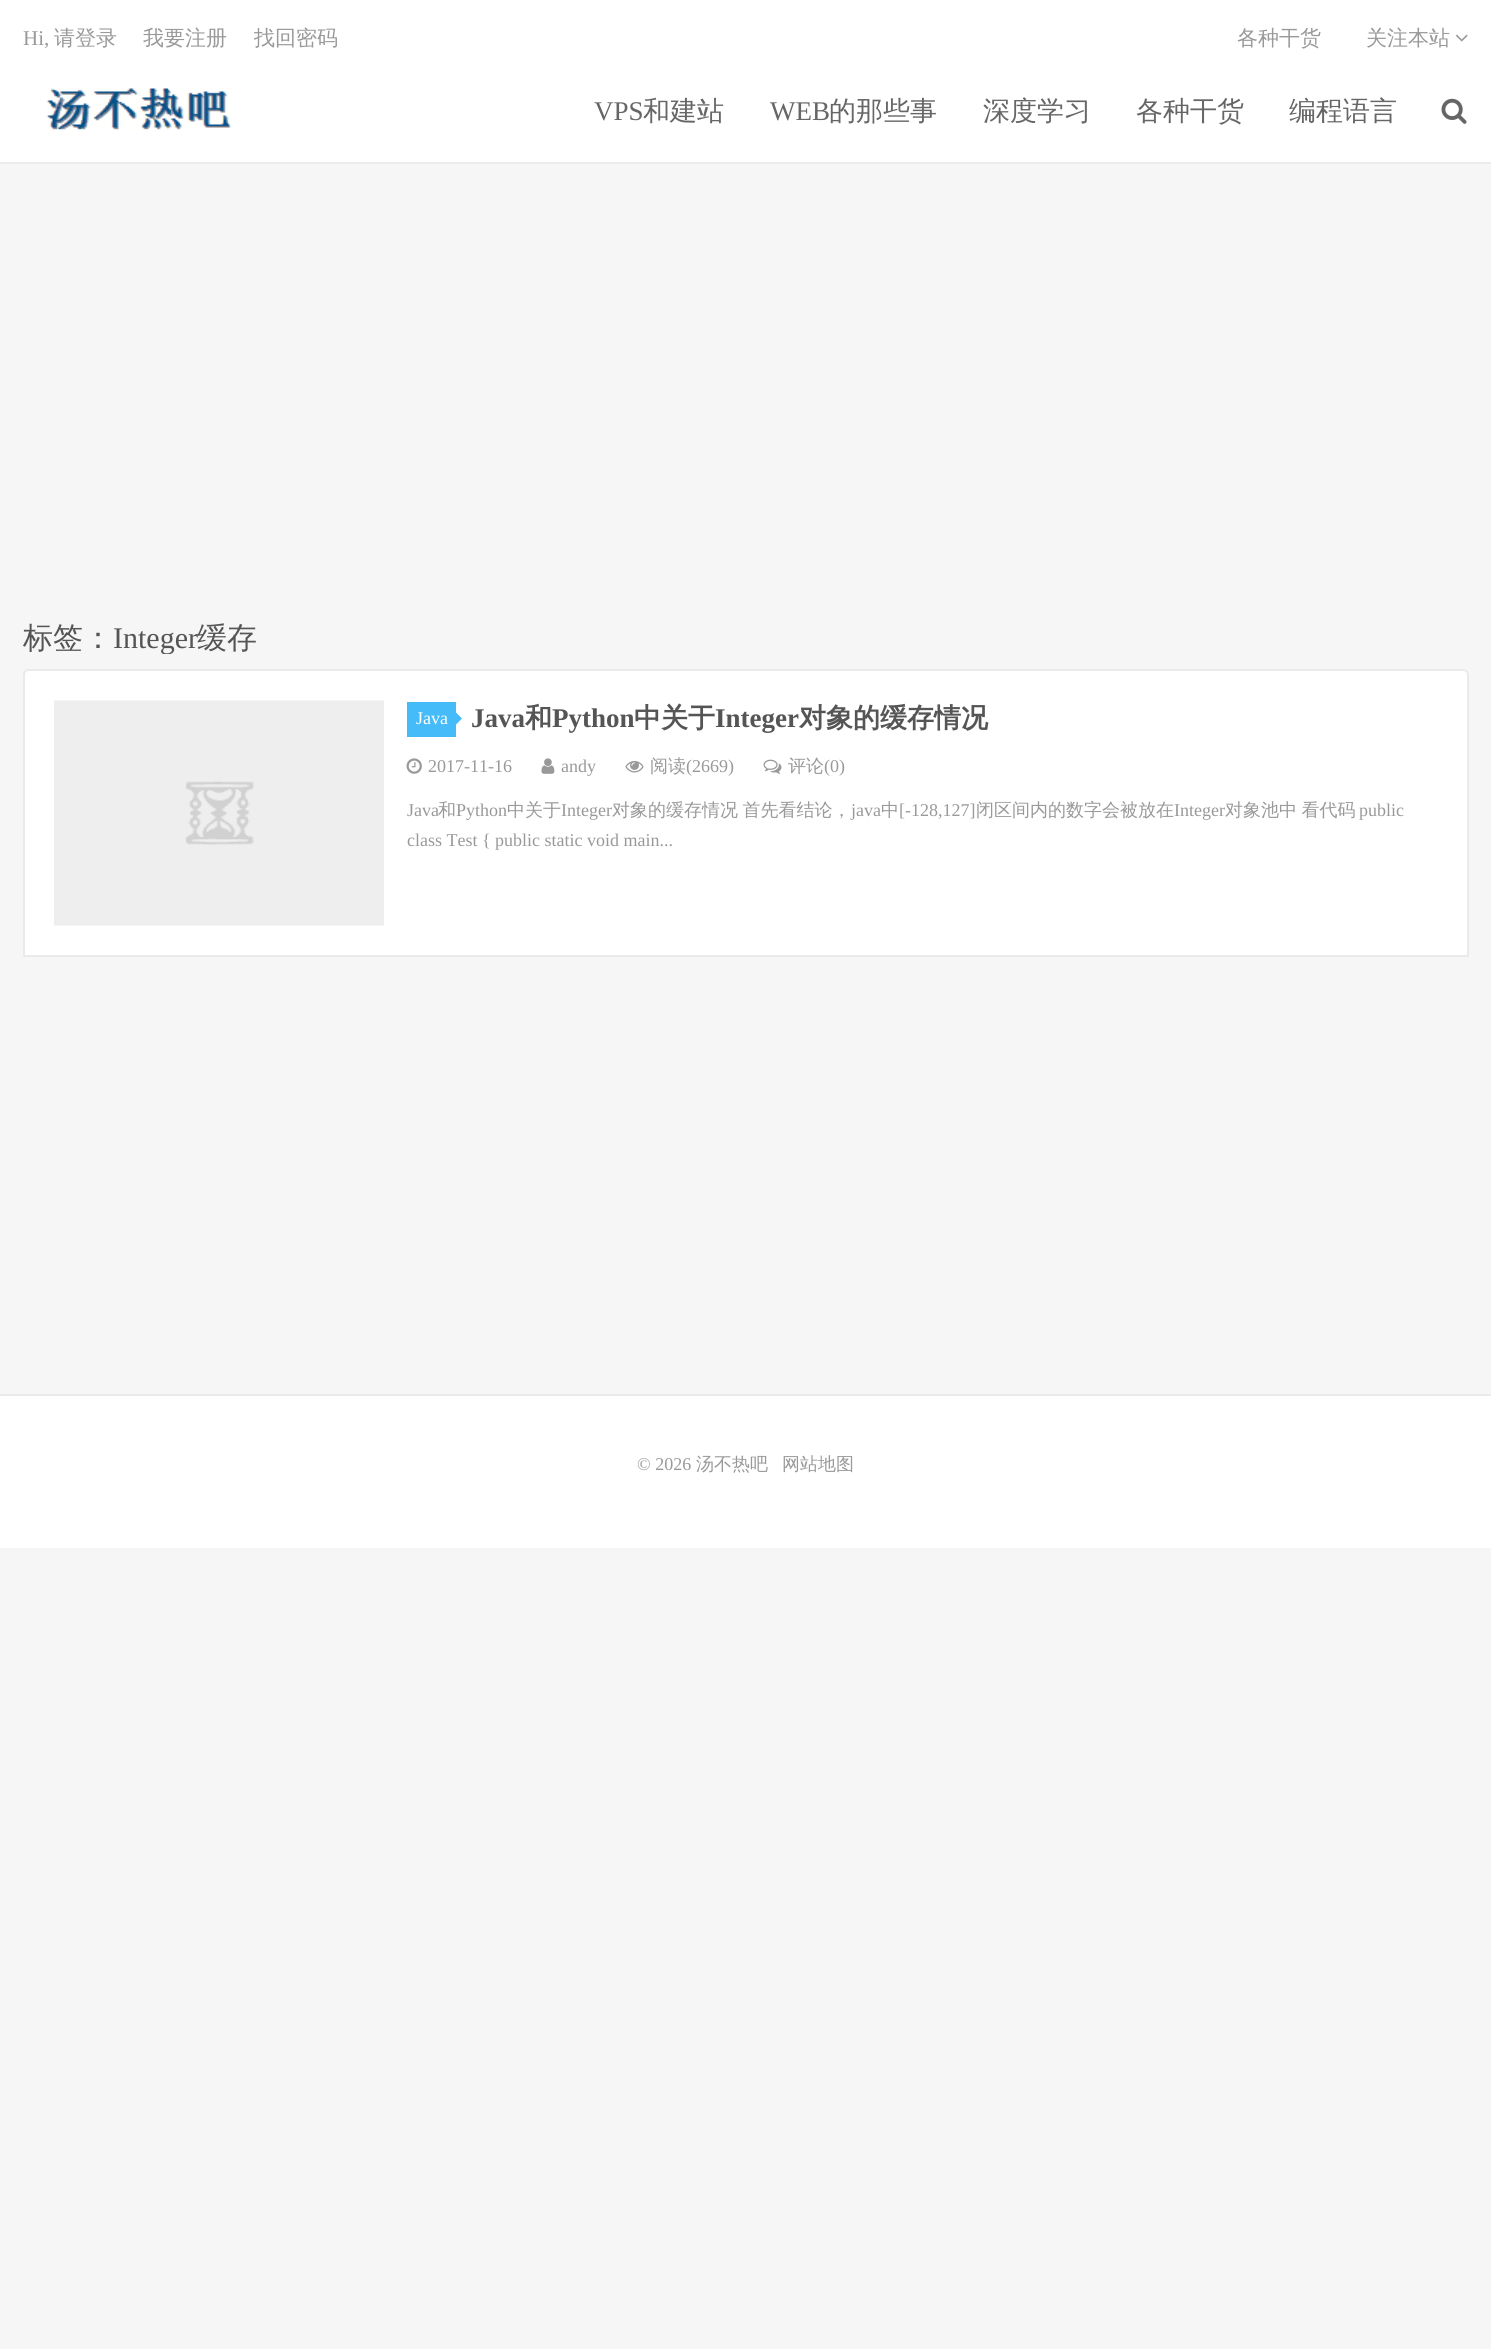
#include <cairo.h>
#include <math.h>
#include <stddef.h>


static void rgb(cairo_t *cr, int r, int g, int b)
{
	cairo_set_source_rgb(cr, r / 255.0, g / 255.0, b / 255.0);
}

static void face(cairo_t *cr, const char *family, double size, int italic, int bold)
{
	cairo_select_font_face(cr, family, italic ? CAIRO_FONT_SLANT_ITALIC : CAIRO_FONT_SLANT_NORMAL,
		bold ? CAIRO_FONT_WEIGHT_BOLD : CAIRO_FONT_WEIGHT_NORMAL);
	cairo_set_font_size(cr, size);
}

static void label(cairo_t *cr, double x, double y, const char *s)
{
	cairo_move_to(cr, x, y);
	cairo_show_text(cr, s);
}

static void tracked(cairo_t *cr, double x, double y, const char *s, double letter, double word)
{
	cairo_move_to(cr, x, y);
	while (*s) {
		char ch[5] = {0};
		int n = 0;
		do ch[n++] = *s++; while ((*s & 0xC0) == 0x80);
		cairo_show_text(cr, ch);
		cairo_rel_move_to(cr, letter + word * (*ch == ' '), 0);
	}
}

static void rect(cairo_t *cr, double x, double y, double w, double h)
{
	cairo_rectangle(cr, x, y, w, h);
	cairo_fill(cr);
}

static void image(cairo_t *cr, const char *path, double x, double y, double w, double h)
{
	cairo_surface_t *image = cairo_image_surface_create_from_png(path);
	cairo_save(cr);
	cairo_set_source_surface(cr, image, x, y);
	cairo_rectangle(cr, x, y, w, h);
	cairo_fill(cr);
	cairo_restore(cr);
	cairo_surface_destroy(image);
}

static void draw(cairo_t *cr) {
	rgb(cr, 246, 246, 246);
	cairo_paint(cr);
	rgb(cr, 255, 255, 255);
	rect(cr, 0, 0, 1491, 162);
	rgb(cr, 235, 235, 235);
	rect(cr, 0, 162, 1491, 2);
	face(cr, "Liberation Serif", 21, 0, 0);
	rgb(cr, 153, 153, 153);
	label(cr, 23, 45, "Hi,");
	face(cr, "WenQuanYi Zen Hei Medium", 21, 0, 0);
	label(cr, 54, 45, "请登录");
	label(cr, 143, 45, "我要注册");
	label(cr, 254, 45, "找回密码");
	label(cr, 1237, 45, "各种干货");
	label(cr, 1366, 45, "关注本站");
	image(cr, "image0.png", 1456, 34, 12, 8);
	image(cr, "image1.png", 46, 88, 186, 42);
	face(cr, "Liberation Serif", 27, 0, 0);
	rgb(cr, 102, 102, 102);
	label(cr, 594, 120, "VPS");
	face(cr, "WenQuanYi Zen Hei Medium", 27, 0, 0);
	label(cr, 643, 120, "和建站");
	face(cr, "Liberation Serif", 27, 0, 0);
	label(cr, 770, 120, "WEB");
	face(cr, "WenQuanYi Zen Hei Medium", 27, 0, 0);
	label(cr, 829, 120, "的那些事");
	label(cr, 983, 120, "深度学习");
	label(cr, 1136, 120, "各种干货");
	label(cr, 1289, 120, "编程语言");
	image(cr, "image2.png", 1441, 98, 26, 26);
	face(cr, "WenQuanYi Zen Hei Medium", 30, 0, 0);
	rgb(cr, 85, 85, 85);
	label(cr, 23, 648, "标签：");
	cairo_save(cr);
	cairo_rectangle(cr, 23, 621, 1446, 33);
	cairo_clip(cr);
	face(cr, "Liberation Serif", 30, 0, 0);
	label(cr, 113, 648, "Integer");
	cairo_restore(cr);
	label(cr, 197, 648, "缓存");
	rgb(cr, 255, 255, 255);
	cairo_new_path(cr);
	cairo_move_to(cr, 29, 670);
	cairo_line_to(cr, 1463, 670);
	cairo_curve_to(cr, 1466, 670, 1468, 672, 1468, 675);
	cairo_line_to(cr, 1468, 956);
	cairo_line_to(cr, 24, 956);
	cairo_line_to(cr, 24, 675);
	cairo_curve_to(cr, 24, 672, 26, 670, 29, 670);
	cairo_close_path(cr);
	cairo_fill_preserve(cr);
	rgb(cr, 234, 234, 234);
	cairo_stroke(cr);
	image(cr, "image3.png", 54, 700, 330, 226);
	rgb(cr, 69, 188, 249);
	rect(cr, 407, 702, 49, 35);
	face(cr, "Liberation Serif", 18, 0, 0);
	rgb(cr, 255, 255, 255);
	label(cr, 416, 724, "Java");
	rgb(cr, 69, 188, 249);
	cairo_new_path(cr);
	cairo_move_to(cr, 456, 724.5);
	cairo_line_to(cr, 456, 712.5);
	cairo_line_to(cr, 462, 718.5);
	cairo_close_path(cr);
	cairo_fill(cr);
	face(cr, "Liberation Serif", 27, 0, 1);
	rgb(cr, 85, 85, 85);
	label(cr, 471, 727, "Java");
	face(cr, "WenQuanYi Zen Hei", 27, 0, 1);
	label(cr, 525, 727, "和");
	face(cr, "Liberation Serif", 27, 0, 1);
	label(cr, 552, 727, "Python");
	face(cr, "WenQuanYi Zen Hei", 27, 0, 1);
	label(cr, 634, 727, "中关于");
	face(cr, "Liberation Serif", 27, 0, 1);
	label(cr, 715, 727, "Integer");
	face(cr, "WenQuanYi Zen Hei", 27, 0, 1);
	label(cr, 799, 727, "对象的缓存情况");
	image(cr, "image4.png", 406, 758, 16, 16);
	face(cr, "Liberation Serif", 18, 0, 0);
	rgb(cr, 153, 153, 153);
	label(cr, 428, 772, "2017-11-16");
	image(cr, "image5.png", 541, 758, 14, 16);
	label(cr, 561, 772, "andy");
	image(cr, "image6.png", 625, 760, 19, 13);
	face(cr, "WenQuanYi Zen Hei Medium", 18, 0, 0);
	label(cr, 650, 772, "阅读");
	face(cr, "Liberation Serif", 18, 0, 0);
	label(cr, 686, 772, "(2669)");
	image(cr, "image7.png", 763, 759, 19, 15);
	face(cr, "WenQuanYi Zen Hei Medium", 18, 0, 0);
	label(cr, 788, 772, "评论");
	face(cr, "Liberation Serif", 18, 0, 0);
	label(cr, 824, 772, "(0)");
	label(cr, 407, 816, "Java");
	face(cr, "WenQuanYi Zen Hei Medium", 18, 0, 0);
	label(cr, 438, 816, "和");
	face(cr, "Liberation Serif", 18, 0, 0);
	label(cr, 456, 816, "Python");
	face(cr, "WenQuanYi Zen Hei Medium", 18, 0, 0);
	label(cr, 507, 816, "中关于");
	face(cr, "Liberation Serif", 18, 0, 0);
	label(cr, 561, 816, "Integer");
	face(cr, "WenQuanYi Zen Hei Medium", 18, 0, 0);
	tracked(cr, 612, 816, "对象的缓存情况 首先看结论，", 0, -1);
	face(cr, "Liberation Serif", 18, 0, 0);
	label(cr, 851, 816, "java");
	face(cr, "WenQuanYi Zen Hei Medium", 18, 0, 0);
	label(cr, 881, 816, "中");
	face(cr, "Liberation Serif", 18, 0, 0);
	label(cr, 899, 816, "[-128,127]");
	face(cr, "WenQuanYi Zen Hei Medium", 18, 0, 0);
	label(cr, 976, 816, "闭区间内的数字会被放在");
	face(cr, "Liberation Serif", 18, 0, 0);
	label(cr, 1174, 816, "Integer");
	face(cr, "WenQuanYi Zen Hei Medium", 18, 0, 0);
	tracked(cr, 1225, 816, "对象池中 看代码", 0, -1);
	face(cr, "Liberation Serif", 18, 0, 0);
	label(cr, 1359, 816, "public");
	label(cr, 407, 846, "class Test { public static void main...");
	rgb(cr, 255, 255, 255);
	rect(cr, 0, 1396, 1491, 152);
	rgb(cr, 234, 234, 234);
	rect(cr, 0, 1394, 1491, 2);
	rgb(cr, 153, 153, 153);
	label(cr, 637, 1470, "© 2026");
	face(cr, "WenQuanYi Zen Hei Medium", 18, 0, 0);
	label(cr, 696, 1470, "汤不热吧");
	label(cr, 782, 1470, "网站地图");
}

int main(void) {
	cairo_surface_t *surface = cairo_image_surface_create(CAIRO_FORMAT_RGB24, 1491, 2349);
	cairo_t *cr = cairo_create(surface);
	cairo_font_options_t *options = cairo_font_options_create();
	cairo_font_options_set_hint_metrics(options, CAIRO_HINT_METRICS_OFF);
	cairo_font_options_set_hint_style(options, CAIRO_HINT_STYLE_NONE);
	cairo_set_font_options(cr, options);
	cairo_set_miter_limit(cr, 4);
	draw(cr);
	cairo_surface_write_to_png(surface, "render.png");
	cairo_font_options_destroy(options);
	cairo_destroy(cr);
	cairo_surface_destroy(surface);
	return 0;
}
